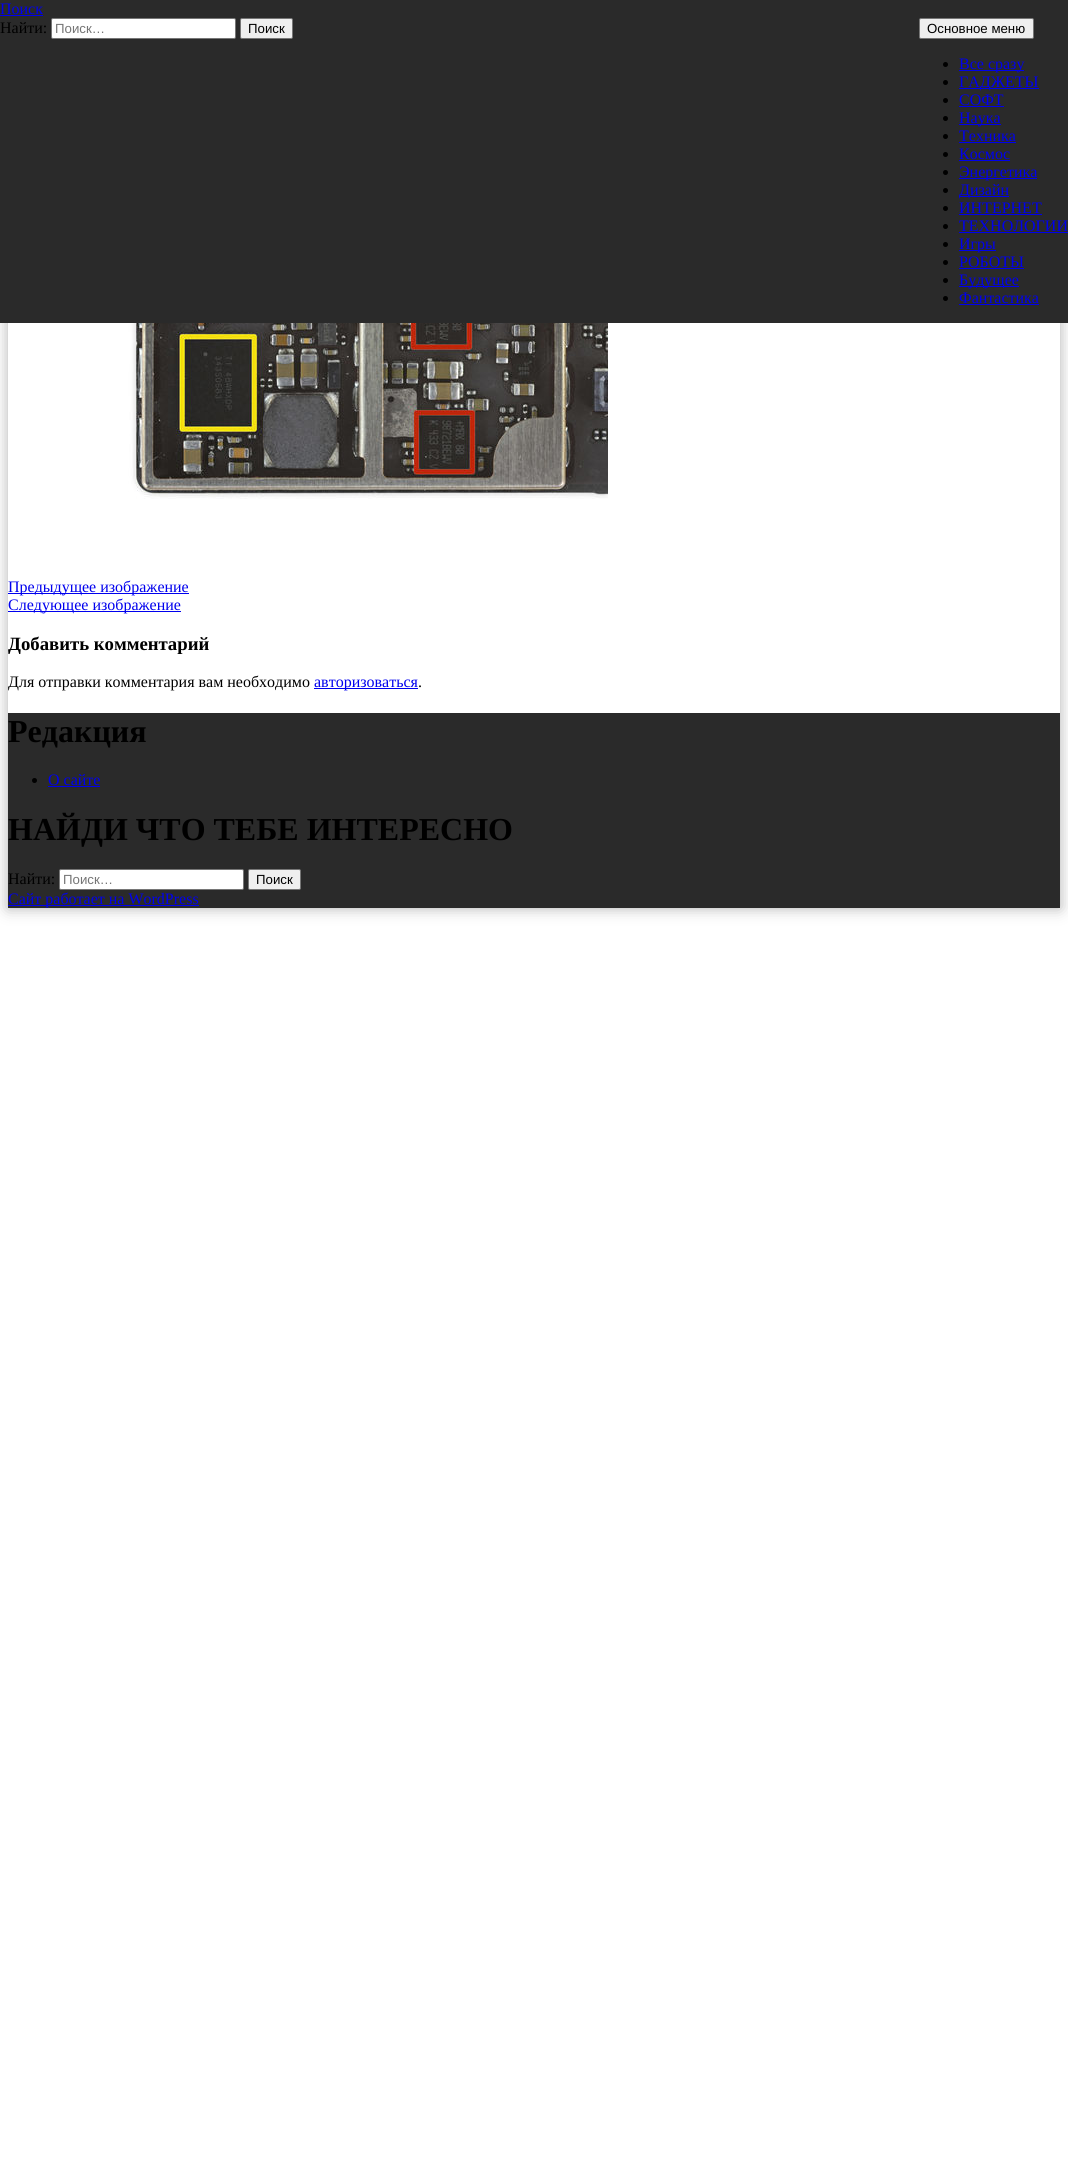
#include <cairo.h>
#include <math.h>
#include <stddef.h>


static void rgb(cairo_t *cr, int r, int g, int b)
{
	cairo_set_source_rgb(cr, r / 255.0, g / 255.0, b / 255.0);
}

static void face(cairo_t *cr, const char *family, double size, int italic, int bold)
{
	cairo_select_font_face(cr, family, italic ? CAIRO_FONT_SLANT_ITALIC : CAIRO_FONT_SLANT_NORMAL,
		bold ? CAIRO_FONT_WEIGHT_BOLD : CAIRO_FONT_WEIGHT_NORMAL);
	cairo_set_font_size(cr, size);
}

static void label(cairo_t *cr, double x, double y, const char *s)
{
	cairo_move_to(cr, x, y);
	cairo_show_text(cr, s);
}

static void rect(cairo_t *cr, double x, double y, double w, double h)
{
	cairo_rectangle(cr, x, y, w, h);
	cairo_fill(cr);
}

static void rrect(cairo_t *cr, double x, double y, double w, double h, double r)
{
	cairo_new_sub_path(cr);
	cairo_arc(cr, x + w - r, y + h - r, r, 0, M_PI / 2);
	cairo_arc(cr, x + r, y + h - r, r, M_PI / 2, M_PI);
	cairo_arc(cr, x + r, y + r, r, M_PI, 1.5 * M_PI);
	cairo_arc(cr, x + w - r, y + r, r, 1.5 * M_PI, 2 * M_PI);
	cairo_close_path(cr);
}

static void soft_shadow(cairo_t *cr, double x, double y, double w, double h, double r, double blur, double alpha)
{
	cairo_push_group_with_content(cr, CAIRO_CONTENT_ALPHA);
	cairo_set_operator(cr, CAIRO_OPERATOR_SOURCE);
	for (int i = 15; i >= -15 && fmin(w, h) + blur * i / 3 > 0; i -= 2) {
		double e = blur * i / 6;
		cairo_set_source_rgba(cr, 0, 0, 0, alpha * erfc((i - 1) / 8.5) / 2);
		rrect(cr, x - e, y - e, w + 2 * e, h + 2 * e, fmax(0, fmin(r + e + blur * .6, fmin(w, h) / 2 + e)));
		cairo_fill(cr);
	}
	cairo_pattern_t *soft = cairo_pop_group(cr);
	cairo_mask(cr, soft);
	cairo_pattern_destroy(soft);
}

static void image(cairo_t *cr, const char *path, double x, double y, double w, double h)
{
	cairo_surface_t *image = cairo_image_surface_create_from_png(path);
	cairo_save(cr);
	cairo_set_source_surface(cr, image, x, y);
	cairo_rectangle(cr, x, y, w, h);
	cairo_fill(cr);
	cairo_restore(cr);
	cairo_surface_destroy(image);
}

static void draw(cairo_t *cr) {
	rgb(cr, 255, 255, 255);
	cairo_paint(cr);
	cairo_save(cr);
	cairo_set_fill_rule(cr, CAIRO_FILL_RULE_EVEN_ODD);
	cairo_new_path(cr);
	cairo_move_to(cr, 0, 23);
	cairo_line_to(cr, 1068, 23);
	cairo_line_to(cr, 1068, 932);
	cairo_line_to(cr, 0, 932);
	cairo_close_path(cr);
	cairo_move_to(cr, 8, 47);
	cairo_line_to(cr, 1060, 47);
	cairo_line_to(cr, 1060, 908);
	cairo_line_to(cr, 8, 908);
	cairo_close_path(cr);
	cairo_clip(cr);
	rgb(cr, 177, 177, 177);
	soft_shadow(cr, 8, 47, 1052, 861, 0, 7.5, 1);
	cairo_restore(cr);
	rgb(cr, 42, 42, 42);
	rect(cr, 0, 0, 1068, 323);
	face(cr, "Liberation Serif", 16, 0, 0);
	rgb(cr, 0, 0, 238);
	label(cr, 0, 14, "Поиск");
	rect(cr, 0, 15, 43, 1);
	rgb(cr, 239, 239, 239);
	rrect(cr, 919.5, 18.5, 114, 20, 1.5);
	cairo_fill_preserve(cr);
	rgb(cr, 118, 118, 118);
	cairo_set_line_width(cr, 1);
	cairo_stroke(cr);
	face(cr, "Liberation Sans", 13.25, 0, 0);
	rgb(cr, 0, 0, 0);
	label(cr, 927, 33, "Основное меню");
	cairo_new_path(cr);
	cairo_arc(cr, 945.5, 64.5, 2.5, 0, 2 * M_PI);
	cairo_fill(cr);
	rgb(cr, 0, 0, 238);
	rect(cr, 959, 70, 65, 1);
	face(cr, "Liberation Serif", 16, 0, 0);
	label(cr, 959, 69, "Все сразу");
	rgb(cr, 0, 0, 0);
	cairo_new_path(cr);
	cairo_arc(cr, 945.5, 82.5, 2.5, 0, 2 * M_PI);
	cairo_fill(cr);
	rgb(cr, 0, 0, 238);
	rect(cr, 959, 88, 80, 1);
	label(cr, 959, 87, "ГАДЖЕТЫ");
	rgb(cr, 0, 0, 0);
	cairo_new_path(cr);
	cairo_arc(cr, 945.5, 100.5, 2.5, 0, 2 * M_PI);
	cairo_fill(cr);
	rgb(cr, 0, 0, 238);
	label(cr, 959, 105, "СОФТ");
	rect(cr, 959, 106, 45, 1);
	rgb(cr, 0, 0, 0);
	cairo_new_path(cr);
	cairo_arc(cr, 945.5, 118.5, 2.5, 0, 2 * M_PI);
	cairo_fill(cr);
	rgb(cr, 0, 0, 238);
	rect(cr, 959, 124, 42, 1);
	label(cr, 959, 123, "Наука");
	rgb(cr, 0, 0, 0);
	cairo_new_path(cr);
	cairo_arc(cr, 945.5, 136.5, 2.5, 0, 2 * M_PI);
	cairo_fill(cr);
	rgb(cr, 0, 0, 238);
	label(cr, 959, 141, "Техника");
	rect(cr, 959, 142, 57, 1);
	rgb(cr, 0, 0, 0);
	cairo_new_path(cr);
	cairo_arc(cr, 945.5, 154.5, 2.5, 0, 2 * M_PI);
	cairo_fill(cr);
	rgb(cr, 0, 0, 238);
	label(cr, 959, 159, "Космос");
	rect(cr, 959, 160, 51, 1);
	rgb(cr, 0, 0, 0);
	cairo_new_path(cr);
	cairo_arc(cr, 945.5, 172.5, 2.5, 0, 2 * M_PI);
	cairo_fill(cr);
	rgb(cr, 0, 0, 238);
	rect(cr, 959, 178, 78, 1);
	label(cr, 959, 177, "Энергетика");
	rgb(cr, 0, 0, 0);
	cairo_new_path(cr);
	cairo_arc(cr, 945.5, 190.5, 2.5, 0, 2 * M_PI);
	cairo_fill(cr);
	rgb(cr, 0, 0, 238);
	rect(cr, 959, 196, 50, 1);
	label(cr, 959, 195, "Дизайн");
	rgb(cr, 0, 0, 0);
	cairo_new_path(cr);
	cairo_arc(cr, 945.5, 208.5, 2.5, 0, 2 * M_PI);
	cairo_fill(cr);
	rgb(cr, 0, 0, 238);
	label(cr, 959, 213, "ИНТЕРНЕТ");
	rect(cr, 959, 214, 83, 1);
	rgb(cr, 0, 0, 0);
	cairo_new_path(cr);
	cairo_arc(cr, 945.5, 226.5, 2.5, 0, 2 * M_PI);
	cairo_fill(cr);
	rgb(cr, 0, 0, 238);
	label(cr, 959, 231, "ТЕХНОЛОГИИ");
	rect(cr, 959, 232, 109, 1);
	rgb(cr, 0, 0, 0);
	cairo_new_path(cr);
	cairo_arc(cr, 945.5, 244.5, 2.5, 0, 2 * M_PI);
	cairo_fill(cr);
	rgb(cr, 0, 0, 238);
	rect(cr, 959, 250, 37, 1);
	label(cr, 959, 249, "Игры");
	rgb(cr, 0, 0, 0);
	cairo_new_path(cr);
	cairo_arc(cr, 945.5, 262.5, 2.5, 0, 2 * M_PI);
	cairo_fill(cr);
	rgb(cr, 0, 0, 238);
	label(cr, 959, 267, "РОБОТЫ");
	rect(cr, 959, 268, 65, 1);
	rgb(cr, 0, 0, 0);
	cairo_new_path(cr);
	cairo_arc(cr, 945.5, 280.5, 2.5, 0, 2 * M_PI);
	cairo_fill(cr);
	rgb(cr, 0, 0, 238);
	rect(cr, 959, 286, 60, 1);
	label(cr, 959, 285, "Будущее");
	rgb(cr, 0, 0, 0);
	cairo_new_path(cr);
	cairo_arc(cr, 945.5, 298.5, 2.5, 0, 2 * M_PI);
	cairo_fill(cr);
	rgb(cr, 0, 0, 238);
	label(cr, 959, 303, "Фантастика");
	rect(cr, 959, 304, 80, 1);
	rgb(cr, 0, 0, 0);
	label(cr, 0, 33, "Найти:");
	rgb(cr, 255, 255, 255);
	rrect(cr, 51.5, 18.5, 184, 20, 1.5);
	cairo_fill_preserve(cr);
	rgb(cr, 118, 118, 118);
	cairo_stroke(cr);
	face(cr, "Liberation Sans", 13.25, 0, 0);
	rgb(cr, 117, 117, 117);
	label(cr, 55, 33, "Поиск…");
	rgb(cr, 239, 239, 239);
	rrect(cr, 240.5, 18.5, 52, 20, 1.5);
	cairo_fill_preserve(cr);
	rgb(cr, 118, 118, 118);
	cairo_stroke(cr);
	rgb(cr, 0, 0, 0);
	label(cr, 248, 33, "Поиск");
	image(cr, "image0.png", 128, 323, 480, 176);
	rgb(cr, 0, 0, 238);
	rect(cr, 8, 593, 181, 1);
	face(cr, "Liberation Serif", 16, 0, 0);
	label(cr, 8, 592, "Предыдущее изображение");
	rect(cr, 8, 611, 173, 1);
	label(cr, 8, 610, "Следующее изображение");
	face(cr, "Liberation Serif", 18.75, 0, 1);
	rgb(cr, 0, 0, 0);
	label(cr, 8, 650, "Добавить комментарий");
	face(cr, "Liberation Serif", 16, 0, 0);
	label(cr, 8, 687, "Для отправки комментария вам необходимо");
	rgb(cr, 0, 0, 238);
	rect(cr, 314, 688, 104, 1);
	label(cr, 314, 687, "авторизоваться");
	rgb(cr, 0, 0, 0);
	label(cr, 418, 687, ".");
	rgb(cr, 42, 42, 42);
	rect(cr, 8, 713, 1052, 195);
	face(cr, "Liberation Serif", 32, 0, 1);
	rgb(cr, 0, 0, 0);
	label(cr, 8, 742, "Редакция");
	cairo_new_path(cr);
	cairo_arc(cr, 34.5, 780.5, 2.5, 0, 2 * M_PI);
	cairo_fill(cr);
	face(cr, "Liberation Serif", 16, 0, 0);
	rgb(cr, 0, 0, 238);
	label(cr, 48, 785, "О сайте");
	rect(cr, 48, 786, 52, 1);
	face(cr, "Liberation Serif", 32, 0, 1);
	rgb(cr, 0, 0, 0);
	label(cr, 8, 840, "НАЙДИ ЧТО ТЕБЕ ИНТЕРЕСНО");
	face(cr, "Liberation Serif", 16, 0, 0);
	label(cr, 8, 884, "Найти:");
	rgb(cr, 255, 255, 255);
	rrect(cr, 59.5, 869.5, 184, 20, 1.5);
	cairo_fill_preserve(cr);
	rgb(cr, 118, 118, 118);
	cairo_stroke(cr);
	face(cr, "Liberation Sans", 13.25, 0, 0);
	rgb(cr, 117, 117, 117);
	label(cr, 63, 884, "Поиск…");
	rgb(cr, 239, 239, 239);
	rrect(cr, 248.5, 869.5, 52, 20, 1.5);
	cairo_fill_preserve(cr);
	rgb(cr, 118, 118, 118);
	cairo_stroke(cr);
	rgb(cr, 0, 0, 0);
	label(cr, 256, 884, "Поиск");
	rgb(cr, 0, 0, 238);
	rect(cr, 8, 905, 191, 1);
	face(cr, "Liberation Serif", 16, 0, 0);
	label(cr, 8, 904, "Сайт работает на WordPress");
}

int main(void) {
	cairo_surface_t *surface = cairo_image_surface_create(CAIRO_FORMAT_RGB24, 1068, 2163);
	cairo_t *cr = cairo_create(surface);
	cairo_font_options_t *options = cairo_font_options_create();
	cairo_font_options_set_hint_metrics(options, CAIRO_HINT_METRICS_OFF);
	cairo_font_options_set_hint_style(options, CAIRO_HINT_STYLE_NONE);
	cairo_set_font_options(cr, options);
	cairo_set_miter_limit(cr, 4);
	draw(cr);
	cairo_surface_write_to_png(surface, "render.png");
	cairo_font_options_destroy(options);
	cairo_destroy(cr);
	cairo_surface_destroy(surface);
	return 0;
}
